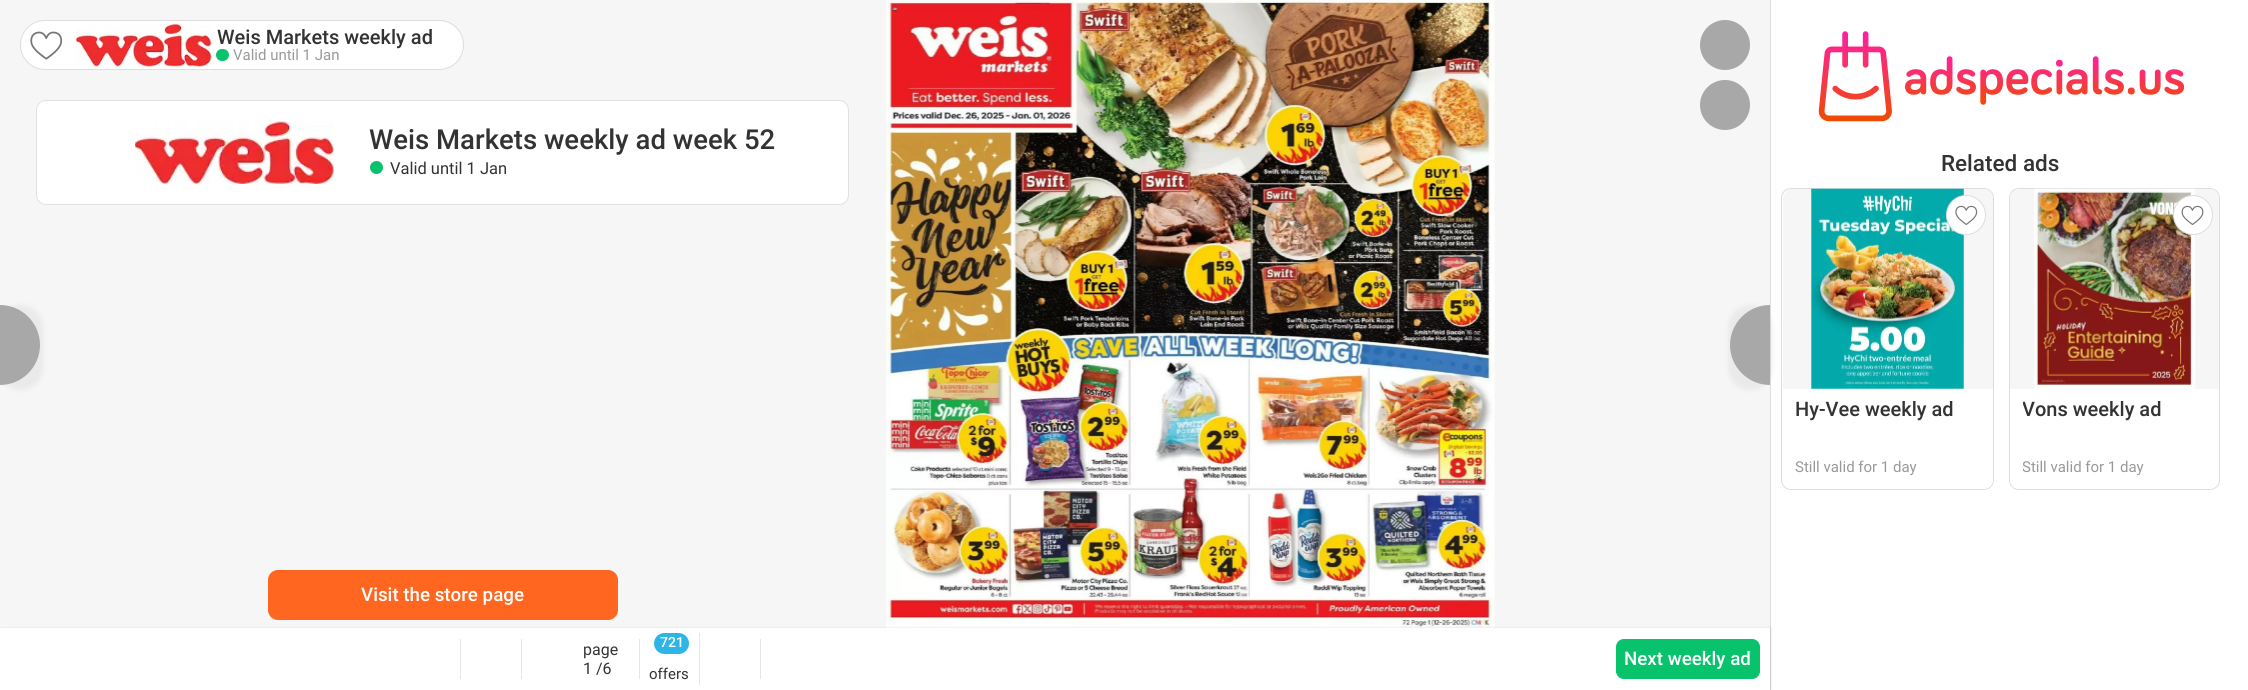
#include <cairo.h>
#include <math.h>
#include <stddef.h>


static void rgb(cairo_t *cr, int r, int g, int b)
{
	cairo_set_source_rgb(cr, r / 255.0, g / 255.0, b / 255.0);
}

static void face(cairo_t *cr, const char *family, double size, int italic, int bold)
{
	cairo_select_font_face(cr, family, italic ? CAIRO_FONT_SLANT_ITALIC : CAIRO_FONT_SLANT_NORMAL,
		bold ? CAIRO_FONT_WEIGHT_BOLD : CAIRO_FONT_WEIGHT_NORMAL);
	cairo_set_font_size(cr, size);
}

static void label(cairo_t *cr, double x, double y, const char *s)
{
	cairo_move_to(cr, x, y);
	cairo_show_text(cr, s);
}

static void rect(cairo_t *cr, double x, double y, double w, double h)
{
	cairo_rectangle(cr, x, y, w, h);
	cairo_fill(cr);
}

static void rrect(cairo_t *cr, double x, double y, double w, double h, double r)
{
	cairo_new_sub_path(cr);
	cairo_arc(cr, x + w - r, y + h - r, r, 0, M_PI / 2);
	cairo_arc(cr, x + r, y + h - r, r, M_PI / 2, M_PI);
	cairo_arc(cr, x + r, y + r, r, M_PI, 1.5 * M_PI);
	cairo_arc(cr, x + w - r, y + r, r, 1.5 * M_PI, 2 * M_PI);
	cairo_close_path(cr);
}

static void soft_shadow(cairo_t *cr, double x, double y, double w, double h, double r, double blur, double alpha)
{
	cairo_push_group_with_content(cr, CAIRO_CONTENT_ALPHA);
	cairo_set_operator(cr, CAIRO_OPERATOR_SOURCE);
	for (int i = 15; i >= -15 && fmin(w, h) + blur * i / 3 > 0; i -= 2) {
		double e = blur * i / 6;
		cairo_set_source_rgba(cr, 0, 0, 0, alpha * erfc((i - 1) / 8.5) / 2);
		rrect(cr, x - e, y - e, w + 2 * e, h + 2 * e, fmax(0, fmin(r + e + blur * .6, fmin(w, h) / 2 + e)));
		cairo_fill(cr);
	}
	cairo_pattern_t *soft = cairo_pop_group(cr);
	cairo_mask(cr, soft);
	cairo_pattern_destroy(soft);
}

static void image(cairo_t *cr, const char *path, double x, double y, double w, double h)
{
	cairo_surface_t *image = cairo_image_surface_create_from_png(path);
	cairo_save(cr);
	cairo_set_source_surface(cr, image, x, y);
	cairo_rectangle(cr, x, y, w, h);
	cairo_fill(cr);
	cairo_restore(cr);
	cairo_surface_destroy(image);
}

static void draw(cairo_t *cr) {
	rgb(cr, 255, 255, 255);
	cairo_paint(cr);
	rgb(cr, 246, 246, 246);
	rect(cr, 0, 0, 1770, 628);
	rgb(cr, 255, 255, 255);
	rrect(cr, 20.5, 20.5, 443, 49, 24.5);
	cairo_fill_preserve(cr);
	rgb(cr, 221, 221, 221);
	cairo_set_line_width(cr, 1);
	cairo_stroke(cr);
	image(cr, "image0.png", 30, 31, 33, 29);
	image(cr, "image1.png", 76, 23, 136, 44);
	face(cr, "Roboto Medium", 20, 0, 0);
	rgb(cr, 51, 51, 51);
	label(cr, 217, 44, "Weis Markets weekly ad");
	rgb(cr, 8, 195, 108);
	rrect(cr, 216, 49, 13, 12, 6);
	cairo_fill(cr);
	face(cr, "Roboto", 15, 0, 0);
	rgb(cr, 153, 153, 153);
	label(cr, 233, 60, "Valid until 1 Jan");
	rgb(cr, 168, 168, 168);
	cairo_new_path(cr);
	cairo_arc(cr, 1725, 45, 25, 0, 2 * M_PI);
	cairo_fill(cr);
	cairo_arc(cr, 1725, 105, 25, 0, 2 * M_PI);
	cairo_fill(cr);
	cairo_save(cr);
	cairo_set_fill_rule(cr, CAIRO_FILL_RULE_EVEN_ODD);
	cairo_new_path(cr);
	cairo_move_to(cr, 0, 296);
	cairo_line_to(cr, 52, 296);
	cairo_line_to(cr, 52, 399);
	cairo_line_to(cr, 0, 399);
	cairo_close_path(cr);
	cairo_move_to(cr, 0, 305);
	cairo_curve_to(cr, 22, 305, 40, 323, 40, 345);
	cairo_curve_to(cr, 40, 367, 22, 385, 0, 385);
	cairo_close_path(cr);
	cairo_clip(cr);
	rgb(cr, 0, 0, 0);
	soft_shadow(cr, -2, 305, 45, 85, 43, 2.5, 0.05);
	cairo_restore(cr);
	cairo_set_source_rgba(cr, 0.2, 0.2, 0.2, 0.4);
	cairo_new_path(cr);
	cairo_move_to(cr, 0, 305);
	cairo_curve_to(cr, 22, 305, 40, 323, 40, 345);
	cairo_curve_to(cr, 40, 367, 22, 385, 0, 385);
	cairo_close_path(cr);
	cairo_fill(cr);
	rgb(cr, 255, 255, 255);
	rrect(cr, 36, 100, 813, 105, 10);
	cairo_fill(cr);
	rrect(cr, 36.5, 100.5, 812, 104, 9.5);
	cairo_set_source_rgba(cr, 0, 0, 0, 0.12);
	cairo_stroke(cr);
	image(cr, "image2.png", 135, 121, 199, 63);
	face(cr, "Roboto Medium", 27.5, 0, 0);
	rgb(cr, 51, 51, 51);
	label(cr, 369, 149, "Weis Markets weekly ad week 52");
	rgb(cr, 8, 195, 108);
	cairo_new_path(cr);
	cairo_arc(cr, 376.5, 167.5, 6.5, 0, 2 * M_PI);
	cairo_fill(cr);
	face(cr, "Roboto", 16.5, 0, 0);
	rgb(cr, 51, 51, 51);
	label(cr, 390, 174, "Valid until 1 Jan");
	rgb(cr, 255, 102, 31);
	rrect(cr, 268.5, 570.5, 349, 49, 9.5);
	cairo_fill_preserve(cr);
	cairo_stroke(cr);
	face(cr, "Roboto Medium", 18.75, 0, 0);
	rgb(cr, 255, 255, 255);
	label(cr, 361, 601, "Visit the store page");
	image(cr, "image3.png", 886, 0, 609, 628);
	rgb(cr, 221, 221, 221);
	rect(cr, 1770, 0, 1, 690);
	rrect(cr, 1781.5, 188.5, 212, 301, 9.5);
	cairo_stroke(cr);
	cairo_save(cr);
	cairo_set_fill_rule(cr, CAIRO_FILL_RULE_EVEN_ODD);
	cairo_new_path(cr);
	cairo_move_to(cr, 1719, 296);
	cairo_line_to(cr, 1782, 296);
	cairo_line_to(cr, 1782, 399);
	cairo_line_to(cr, 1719, 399);
	cairo_close_path(cr);
	cairo_move_to(cr, 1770, 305);
	cairo_line_to(cr, 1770, 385);
	cairo_curve_to(cr, 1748, 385, 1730, 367, 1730, 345);
	cairo_curve_to(cr, 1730, 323, 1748, 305, 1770, 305);
	cairo_close_path(cr);
	cairo_clip(cr);
	rgb(cr, 0, 0, 0);
	soft_shadow(cr, 1728, 305, 45, 85, 43, 2.5, 0.05);
	cairo_restore(cr);
	cairo_set_source_rgba(cr, 0.2, 0.2, 0.2, 0.4);
	cairo_new_path(cr);
	cairo_move_to(cr, 1770, 305);
	cairo_line_to(cr, 1770, 385);
	cairo_curve_to(cr, 1748, 385, 1730, 367, 1730, 345);
	cairo_curve_to(cr, 1730, 323, 1748, 305, 1770, 305);
	cairo_close_path(cr);
	cairo_fill(cr);
	rgb(cr, 0, 0, 0);
	soft_shadow(cr, 1, 628, 1770, 62, 0, 1, 0.1);
	rgb(cr, 255, 255, 255);
	rect(cr, 0, 628, 1770, 62);
	rgb(cr, 230, 230, 230);
	rect(cr, 460, 639, 1, 40);
	rect(cr, 521, 639, 1, 40);
	rect(cr, 639, 639, 1, 40);
	face(cr, "Roboto", 16, 0, 0);
	rgb(cr, 51, 51, 51);
	label(cr, 583, 655, "page");
	label(cr, 583, 674, "1 /6");
	rgb(cr, 230, 230, 230);
	rect(cr, 699, 633, 1, 52);
	rgb(cr, 44, 181, 230);
	rrect(cr, 654, 633, 35, 21, 10.5);
	cairo_fill(cr);
	face(cr, "Roboto Medium", 14, 0, 0);
	rgb(cr, 255, 255, 255);
	label(cr, 660, 647, "721");
	face(cr, "Roboto", 15, 0, 0);
	rgb(cr, 51, 51, 51);
	label(cr, 649, 679, "offers");
	rgb(cr, 230, 230, 230);
	rect(cr, 760, 639, 1, 40);
	rgb(cr, 8, 195, 108);
	rrect(cr, 1616.5, 639.5, 143, 39, 7.5);
	cairo_fill_preserve(cr);
	cairo_stroke(cr);
	face(cr, "Roboto Medium", 18.75, 0, 0);
	rgb(cr, 255, 255, 255);
	label(cr, 1624, 665, "Next weekly ad");
	image(cr, "image4.png", 1818, 31, 367, 91);
	face(cr, "Roboto Medium", 22.5, 0, 0);
	rgb(cr, 51, 51, 51);
	label(cr, 1941, 171, "Related ads");
	rgb(cr, 246, 246, 246);
	cairo_new_path(cr);
	cairo_move_to(cr, 1793, 189);
	cairo_line_to(cr, 1983, 189);
	cairo_curve_to(cr, 1988.5, 189, 1993, 193.5, 1993, 199);
	cairo_line_to(cr, 1993, 389);
	cairo_line_to(cr, 1783, 389);
	cairo_line_to(cr, 1783, 199);
	cairo_curve_to(cr, 1783, 193.5, 1787.5, 189, 1793, 189);
	cairo_close_path(cr);
	cairo_fill(cr);
	image(cr, "image5.png", 1811, 188, 153, 201);
	rgb(cr, 255, 255, 255);
	cairo_arc(cr, 1966, 215, 19.5, 0, 2 * M_PI);
	cairo_fill_preserve(cr);
	rgb(cr, 221, 221, 221);
	cairo_stroke(cr);
	image(cr, "image6.png", 1955, 205, 23, 20);
	rgb(cr, 255, 255, 255);
	cairo_new_path(cr);
	cairo_move_to(cr, 1783, 389);
	cairo_line_to(cr, 1993, 389);
	cairo_line_to(cr, 1993, 479);
	cairo_curve_to(cr, 1993, 484.5, 1988.5, 489, 1983, 489);
	cairo_line_to(cr, 1793, 489);
	cairo_curve_to(cr, 1787.5, 489, 1783, 484.5, 1783, 479);
	cairo_close_path(cr);
	cairo_fill(cr);
	face(cr, "Roboto Medium", 20, 0, 0);
	rgb(cr, 51, 51, 51);
	label(cr, 1795, 416, "Hy-Vee weekly ad");
	face(cr, "Roboto", 15, 0, 0);
	rgb(cr, 153, 153, 153);
	label(cr, 1795, 472, "Still valid for 1 day");
	rrect(cr, 2009.5, 188.5, 210, 301, 9.5);
	rgb(cr, 221, 221, 221);
	cairo_stroke(cr);
	rgb(cr, 246, 246, 246);
	cairo_new_path(cr);
	cairo_move_to(cr, 2020, 189);
	cairo_line_to(cr, 2209, 189);
	cairo_curve_to(cr, 2214.5, 189, 2219, 193.5, 2219, 199);
	cairo_line_to(cr, 2219, 389);
	cairo_line_to(cr, 2010, 389);
	cairo_line_to(cr, 2010, 199);
	cairo_curve_to(cr, 2010, 193.5, 2014.5, 189, 2020, 189);
	cairo_close_path(cr);
	cairo_fill(cr);
	image(cr, "image7.png", 2034, 188, 161, 201);
	rgb(cr, 255, 255, 255);
	cairo_arc(cr, 2193, 215, 19.5, 0, 2 * M_PI);
	cairo_fill_preserve(cr);
	rgb(cr, 221, 221, 221);
	cairo_stroke(cr);
	image(cr, "image8.png", 2181, 205, 23, 20);
	rgb(cr, 255, 255, 255);
	cairo_new_path(cr);
	cairo_move_to(cr, 2010, 389);
	cairo_line_to(cr, 2219, 389);
	cairo_line_to(cr, 2219, 479);
	cairo_curve_to(cr, 2219, 484.5, 2214.5, 489, 2209, 489);
	cairo_line_to(cr, 2020, 489);
	cairo_curve_to(cr, 2014.5, 489, 2010, 484.5, 2010, 479);
	cairo_close_path(cr);
	cairo_fill(cr);
	cairo_save(cr);
	cairo_rectangle(cr, 2023, 398, 183, 23);
	cairo_clip(cr);
	face(cr, "Roboto Medium", 20, 0, 0);
	rgb(cr, 51, 51, 51);
	label(cr, 2022, 416, "Vons weekly ad");
	cairo_restore(cr);
	cairo_save(cr);
	cairo_rectangle(cr, 2023, 456, 121, 23);
	cairo_clip(cr);
	rgb(cr, 153, 153, 153);
	label(cr, 2022, 472, "Still valid for 1 day");
	cairo_restore(cr);
}

int main(void) {
	cairo_surface_t *surface = cairo_image_surface_create(CAIRO_FORMAT_RGB24, 2248, 690);
	cairo_t *cr = cairo_create(surface);
	cairo_font_options_t *options = cairo_font_options_create();
	cairo_font_options_set_hint_metrics(options, CAIRO_HINT_METRICS_OFF);
	cairo_font_options_set_hint_style(options, CAIRO_HINT_STYLE_NONE);
	cairo_set_font_options(cr, options);
	cairo_set_miter_limit(cr, 4);
	draw(cr);
	cairo_surface_write_to_png(surface, "render.png");
	cairo_font_options_destroy(options);
	cairo_destroy(cr);
	cairo_surface_destroy(surface);
	return 0;
}
